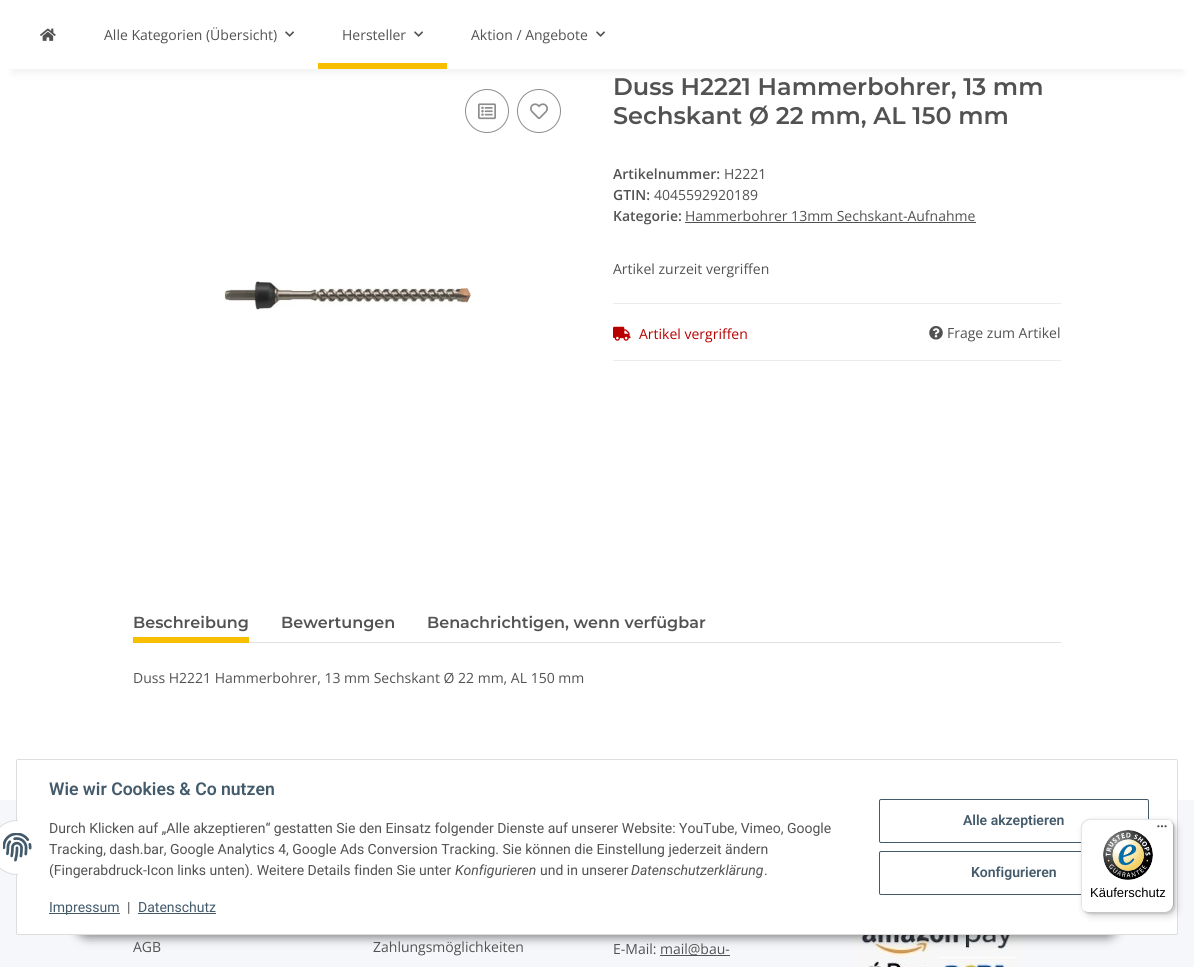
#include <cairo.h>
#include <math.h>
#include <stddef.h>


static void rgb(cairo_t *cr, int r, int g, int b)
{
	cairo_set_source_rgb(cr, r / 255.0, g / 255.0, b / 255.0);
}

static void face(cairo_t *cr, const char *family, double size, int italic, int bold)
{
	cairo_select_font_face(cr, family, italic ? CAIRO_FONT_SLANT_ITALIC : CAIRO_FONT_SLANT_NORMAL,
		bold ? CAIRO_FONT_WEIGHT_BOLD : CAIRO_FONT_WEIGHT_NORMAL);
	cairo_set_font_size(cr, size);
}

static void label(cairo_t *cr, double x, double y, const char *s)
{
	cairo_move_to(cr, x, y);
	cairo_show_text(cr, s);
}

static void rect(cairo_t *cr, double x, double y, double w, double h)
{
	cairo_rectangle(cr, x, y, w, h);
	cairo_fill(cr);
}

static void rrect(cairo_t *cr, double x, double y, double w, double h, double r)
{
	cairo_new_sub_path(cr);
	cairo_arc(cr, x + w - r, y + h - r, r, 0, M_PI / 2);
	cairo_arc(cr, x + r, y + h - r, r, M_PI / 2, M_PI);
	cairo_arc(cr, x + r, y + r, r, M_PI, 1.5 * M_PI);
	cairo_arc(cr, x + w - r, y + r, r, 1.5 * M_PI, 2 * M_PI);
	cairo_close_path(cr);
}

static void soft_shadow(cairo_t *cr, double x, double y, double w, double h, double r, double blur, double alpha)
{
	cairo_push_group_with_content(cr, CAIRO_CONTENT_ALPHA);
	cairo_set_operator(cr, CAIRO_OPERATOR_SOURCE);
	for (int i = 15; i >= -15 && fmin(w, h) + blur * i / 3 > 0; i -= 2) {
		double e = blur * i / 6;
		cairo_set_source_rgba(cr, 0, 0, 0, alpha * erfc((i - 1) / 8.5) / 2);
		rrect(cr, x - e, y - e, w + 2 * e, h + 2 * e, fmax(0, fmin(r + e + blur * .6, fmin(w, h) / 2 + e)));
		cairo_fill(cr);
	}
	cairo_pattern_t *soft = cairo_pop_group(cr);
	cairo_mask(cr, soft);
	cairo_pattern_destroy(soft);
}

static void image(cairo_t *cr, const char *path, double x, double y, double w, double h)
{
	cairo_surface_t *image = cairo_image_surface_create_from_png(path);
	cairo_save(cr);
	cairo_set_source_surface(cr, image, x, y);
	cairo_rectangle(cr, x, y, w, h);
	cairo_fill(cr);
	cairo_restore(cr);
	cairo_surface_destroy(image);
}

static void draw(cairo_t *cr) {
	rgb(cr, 245, 247, 250);
	cairo_paint(cr);
	rgb(cr, 255, 255, 255);
	rect(cr, 0, 69, 1194, 731);
	rgb(cr, 0, 0, 0);
	soft_shadow(cr, 12, 28, 1170, 45, 0, 4.5, 0.06);
	rgb(cr, 255, 255, 255);
	rect(cr, 0, 0, 1194, 69);
	image(cr, "image0.png", 40, 28, 16, 13);
	face(cr, "Open Sans", 14, 0, 0);
	rgb(cr, 82, 82, 82);
	label(cr, 104, 40, "Alle Kategorien (Übersicht)");
	image(cr, "image1.png", 285, 31, 9, 6);
	label(cr, 342, 40, "Hersteller");
	image(cr, "image1.png", 414, 31, 9, 6);
	rgb(cr, 248, 191, 0);
	rect(cr, 318, 63, 129, 6);
	rgb(cr, 82, 82, 82);
	label(cr, 471, 40, "Aktion / Angebote");
	image(cr, "image1.png", 596, 31, 9, 6);
	cairo_arc(cr, 487, 111, 21.5, 0, 2 * M_PI);
	rgb(cr, 141, 141, 141);
	cairo_set_line_width(cr, 1);
	cairo_stroke(cr);
	image(cr, "image2.png", 478, 103, 18, 17);
	cairo_arc(cr, 539, 111, 21.5, 0, 2 * M_PI);
	cairo_stroke(cr);
	image(cr, "image3.png", 530, 103, 18, 17);
	image(cr, "image4.png", 224, 281, 247, 29);
	face(cr, "Montserrat SemiBold", 24, 0, 0);
	rgb(cr, 82, 82, 82);
	label(cr, 613, 95, "Duss H2221 Hammerbohrer, 13 mm");
	label(cr, 613, 124, "Sechskant Ø 22 mm, AL 150 mm");
	face(cr, "Open Sans SemiBold", 14, 0, 0);
	label(cr, 613, 179, "Artikelnummer:");
	face(cr, "Open Sans", 14, 0, 0);
	label(cr, 724, 179, "H2221");
	face(cr, "Open Sans SemiBold", 14, 0, 0);
	label(cr, 613, 200, "GTIN:");
	face(cr, "Open Sans", 14, 0, 0);
	label(cr, 654, 200, "4045592920189");
	face(cr, "Open Sans SemiBold", 14, 0, 0);
	label(cr, 613, 221, "Kategorie:");
	face(cr, "Open Sans", 14, 0, 0);
	label(cr, 685, 221, "Hammerbohrer 13mm Sechskant-Aufnahme");
	rect(cr, 685, 222, 291, 1);
	label(cr, 613, 274, "Artikel zurzeit vergriffen");
	rgb(cr, 235, 235, 235);
	rect(cr, 613, 303, 448, 1);
	rect(cr, 613, 360, 448, 1);
	image(cr, "image5.png", 613, 326, 18, 15);
	rgb(cr, 185, 0, 0);
	label(cr, 639, 339, "Artikel vergriffen");
	image(cr, "image6.png", 929, 326, 14, 14);
	rgb(cr, 82, 82, 82);
	label(cr, 947, 338, "Frage zum Artikel");
	rgb(cr, 222, 226, 230);
	rect(cr, 249, 642, 812, 1);
	face(cr, "Montserrat SemiBold", 16, 0, 0);
	rgb(cr, 82, 82, 82);
	label(cr, 133, 628, "Beschreibung");
	rgb(cr, 248, 191, 0);
	rect(cr, 133, 637, 116, 6);
	rgb(cr, 82, 82, 82);
	label(cr, 281, 628, "Bewertungen");
	label(cr, 427, 628, "Benachrichtigen, wenn verfügbar");
	face(cr, "Open Sans", 14, 0, 0);
	label(cr, 133, 683, "Duss H2221 Hammerbohrer, 13 mm Sechskant Ø 22 mm, AL 150 mm");
	image(cr, "image10.png", 853, 935, 168, 32);
	rgb(cr, 0, 0, 0);
	soft_shadow(cr, 75, 906, 1044, 32, 16, 5, 0.45);
	rgb(cr, 255, 255, 255);
	rrect(cr, 16.5, 759.5, 1161, 175, 1.5);
	cairo_fill_preserve(cr);
	rgb(cr, 221, 221, 221);
	cairo_stroke(cr);
	rgb(cr, 255, 255, 255);
	cairo_arc(cr, 17.5, 847.5, 27, 0, 2 * M_PI);
	cairo_fill_preserve(cr);
	rgb(cr, 221, 221, 221);
	cairo_stroke(cr);
	rgb(cr, 255, 255, 255);
	rect(cr, 18, 820, 27, 55);
	image(cr, "image7.png", 3, 833, 29, 29);
	face(cr, "Roboto SemiBold", 17.6, 0, 0);
	rgb(cr, 67, 90, 107);
	label(cr, 49, 795, "Wie wir Cookies & Co nutzen");
	face(cr, "Roboto", 14, 0, 0);
	rgb(cr, 82, 82, 82);
	label(cr, 49, 833, "Durch Klicken auf „Alle akzeptieren“ gestatten Sie den Einsatz folgender Dienste auf unserer Website: YouTube, Vimeo, Google");
	label(cr, 49, 854, "Tracking, dash.bar, Google Analytics 4, Google Ads Conversion Tracking. Sie können die Einstellung jederzeit ändern");
	label(cr, 49, 875, "(Fingerabdruck-Icon links unten). Weitere Details finden Sie unter");
	face(cr, "Roboto", 14, 1, 0);
	label(cr, 455, 875, "Konfigurieren");
	face(cr, "Roboto", 14, 0, 0);
	label(cr, 540, 875, "und in unserer");
	face(cr, "Roboto", 14, 1, 0);
	label(cr, 631, 875, "Datenschutzerklärung");
	face(cr, "Roboto", 14, 0, 0);
	label(cr, 764, 875, ".");
	rgb(cr, 67, 90, 107);
	rect(cr, 49, 913, 71, 1);
	label(cr, 49, 912, "Impressum");
	rgb(cr, 82, 82, 82);
	label(cr, 127, 912, "|");
	rgb(cr, 67, 90, 107);
	label(cr, 138, 912, "Datenschutz");
	rect(cr, 138, 913, 78, 1);
	rrect(cr, 879.5, 799.5, 269, 43, 1.5);
	cairo_stroke(cr);
	face(cr, "Roboto SemiBold", 14, 0, 0);
	label(cr, 963, 825, "Alle akzeptieren");
	rrect(cr, 879.5, 851.5, 269, 43, 1.5);
	cairo_stroke(cr);
	label(cr, 971, 877, "Konfigurieren");
	rgb(cr, 0, 0, 0);
	soft_shadow(cr, 1084, 822, 93, 94, 8, 4, 0.15);
	soft_shadow(cr, 1082, 820, 93, 94, 8, 1, 0.15);
	rgb(cr, 255, 255, 255);
	rrect(cr, 1081, 819, 93, 94, 8);
	cairo_fill(cr);
	rgb(cr, 229, 229, 229);
	cairo_new_path(cr);
	cairo_move_to(cr, 1090, 820);
	cairo_line_to(cr, 1167, 820);
	cairo_curve_to(cr, 1169, 820, 1171, 821, 1173, 823);
	cairo_curve_to(cr, 1171, 821, 1169, 819, 1166, 819);
	cairo_line_to(cr, 1089, 819);
	cairo_curve_to(cr, 1085, 819, 1081, 823, 1081, 827);
	cairo_line_to(cr, 1081, 905);
	cairo_curve_to(cr, 1081, 908, 1083, 910, 1085, 912);
	cairo_curve_to(cr, 1083, 910, 1082, 908, 1082, 906);
	cairo_line_to(cr, 1082, 828);
	cairo_curve_to(cr, 1082, 824, 1086, 820, 1090, 820);
	cairo_close_path(cr);
	cairo_fill(cr);
	rgb(cr, 204, 204, 204);
	cairo_new_path(cr);
	cairo_move_to(cr, 1082, 909);
	cairo_curve_to(cr, 1084, 911, 1086, 913, 1089, 913);
	cairo_line_to(cr, 1166, 913);
	cairo_curve_to(cr, 1170, 913, 1174, 909, 1174, 905);
	cairo_line_to(cr, 1174, 827);
	cairo_curve_to(cr, 1174, 824, 1172, 822, 1170, 820);
	cairo_curve_to(cr, 1172, 822, 1173, 824, 1173, 826);
	cairo_line_to(cr, 1173, 904);
	cairo_curve_to(cr, 1173, 908, 1169, 912, 1165, 912);
	cairo_line_to(cr, 1088, 912);
	cairo_curve_to(cr, 1086, 912, 1084, 911, 1082, 909);
	cairo_close_path(cr);
	cairo_fill(cr);
	cairo_set_source_rgba(cr, 0.196, 0.196, 0.196, 0.2);
	cairo_new_path(cr);
	cairo_move_to(cr, 1083, 910);
	cairo_curve_to(cr, 1084, 912, 1087, 913, 1089, 913);
	cairo_line_to(cr, 1166, 913);
	cairo_curve_to(cr, 1170, 913, 1174, 909, 1174, 905);
	cairo_line_to(cr, 1174, 827);
	cairo_curve_to(cr, 1174, 825, 1173, 822, 1171, 821);
	cairo_curve_to(cr, 1172, 822, 1173, 824, 1173, 826);
	cairo_line_to(cr, 1173, 904);
	cairo_curve_to(cr, 1173, 909, 1170, 912, 1165, 912);
	cairo_line_to(cr, 1088, 912);
	cairo_curve_to(cr, 1086, 912, 1084, 911, 1083, 910);
	cairo_close_path(cr);
	cairo_fill(cr);
	image(cr, "image8.png", 1157, 825, 10, 3);
	cairo_set_source_rgba(cr, 1, 1, 1, 0.3);
	cairo_new_path(cr);
	cairo_move_to(cr, 1083, 910);
	cairo_curve_to(cr, 1084, 912, 1087, 913, 1089, 913);
	cairo_line_to(cr, 1166, 913);
	cairo_curve_to(cr, 1170, 913, 1174, 909, 1174, 905);
	cairo_line_to(cr, 1174, 904);
	cairo_curve_to(cr, 1174, 909, 1170, 912, 1166, 912);
	cairo_line_to(cr, 1088, 912);
	cairo_curve_to(cr, 1086, 912, 1084, 911, 1083, 910);
	cairo_close_path(cr);
	cairo_fill(cr);
	image(cr, "image9.png", 1103, 830, 50, 50);
	face(cr, "Liberation Sans", 13, 0, 0);
	rgb(cr, 0, 0, 0);
	label(cr, 1090, 897, "Käuferschutz");
	face(cr, "Open Sans", 14, 0, 0);
	rgb(cr, 82, 82, 82);
	label(cr, 133, 952, "AGB");
	label(cr, 373, 952, "Zahlungsmöglichkeiten");
	label(cr, 613, 954, "E-Mail:");
	rect(cr, 660, 955, 70, 1);
	label(cr, 660, 954, "mail@bau-");
}

int main(void) {
	cairo_surface_t *surface = cairo_image_surface_create(CAIRO_FORMAT_RGB24, 1194, 967);
	cairo_t *cr = cairo_create(surface);
	cairo_font_options_t *options = cairo_font_options_create();
	cairo_font_options_set_hint_metrics(options, CAIRO_HINT_METRICS_OFF);
	cairo_font_options_set_hint_style(options, CAIRO_HINT_STYLE_NONE);
	cairo_set_font_options(cr, options);
	cairo_set_miter_limit(cr, 4);
	draw(cr);
	cairo_surface_write_to_png(surface, "render.png");
	cairo_font_options_destroy(options);
	cairo_destroy(cr);
	cairo_surface_destroy(surface);
	return 0;
}
